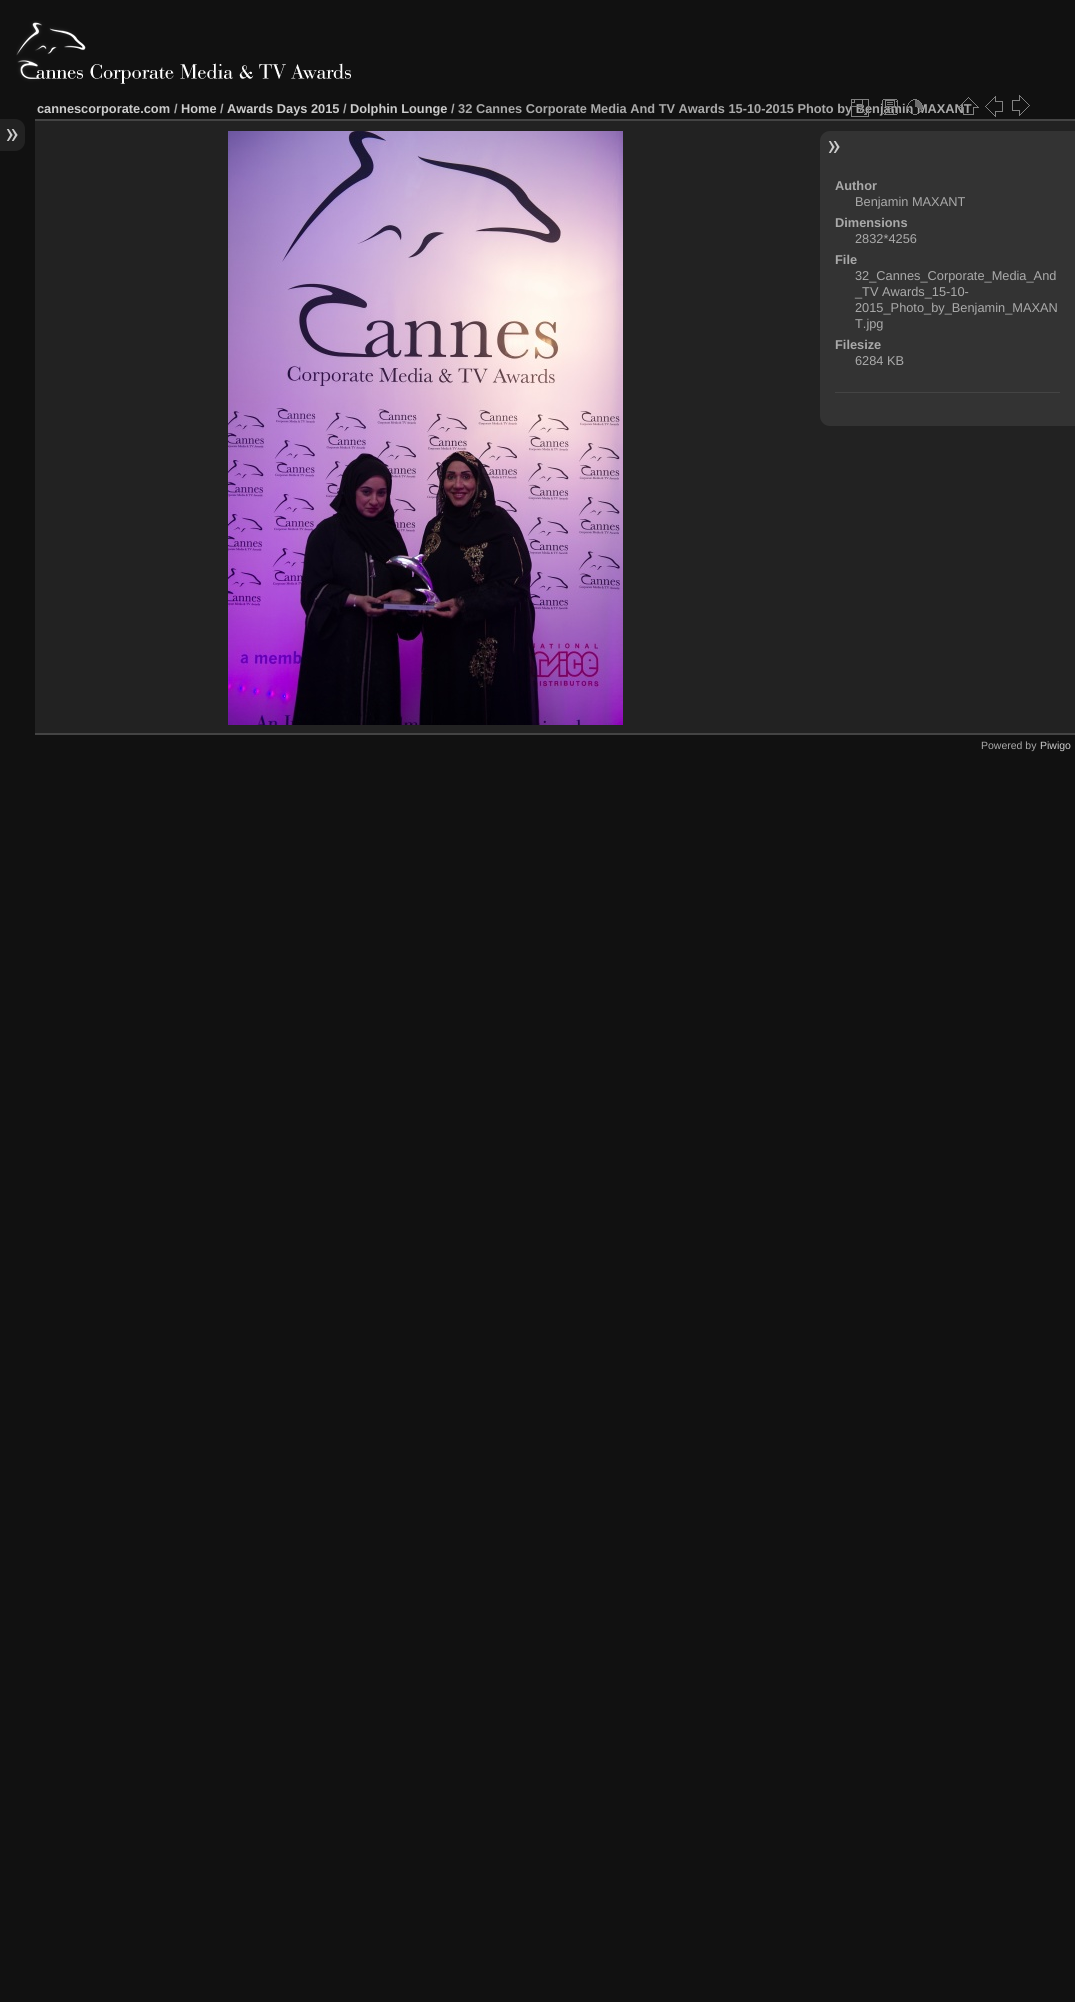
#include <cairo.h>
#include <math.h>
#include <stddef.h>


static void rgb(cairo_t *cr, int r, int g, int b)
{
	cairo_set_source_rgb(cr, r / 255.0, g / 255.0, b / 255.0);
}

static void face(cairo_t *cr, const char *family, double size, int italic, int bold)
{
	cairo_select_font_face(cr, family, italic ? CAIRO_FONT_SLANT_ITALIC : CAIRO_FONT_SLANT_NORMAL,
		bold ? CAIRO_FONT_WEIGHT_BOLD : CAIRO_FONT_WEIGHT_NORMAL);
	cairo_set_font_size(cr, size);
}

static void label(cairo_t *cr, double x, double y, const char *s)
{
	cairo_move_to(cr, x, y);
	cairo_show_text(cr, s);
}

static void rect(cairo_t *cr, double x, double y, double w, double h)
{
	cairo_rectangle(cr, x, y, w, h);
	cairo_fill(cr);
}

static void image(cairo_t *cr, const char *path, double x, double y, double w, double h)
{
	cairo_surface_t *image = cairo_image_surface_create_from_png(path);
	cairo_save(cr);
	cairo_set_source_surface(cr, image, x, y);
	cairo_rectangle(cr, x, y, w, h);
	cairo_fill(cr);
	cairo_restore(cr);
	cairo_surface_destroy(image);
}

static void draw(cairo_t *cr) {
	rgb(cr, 17, 17, 17);
	cairo_paint(cr);
	image(cr, "image0.png", 16, 20, 335, 64);
	rgb(cr, 34, 34, 34);
	cairo_new_path(cr);
	cairo_move_to(cr, 0, 119);
	cairo_line_to(cr, 15, 119);
	cairo_curve_to(cr, 20.5, 119, 25, 123.5, 25, 129);
	cairo_line_to(cr, 25, 141);
	cairo_curve_to(cr, 25, 146.5, 20.5, 151, 15, 151);
	cairo_line_to(cr, 0, 151);
	cairo_close_path(cr);
	cairo_fill(cr);
	image(cr, "image1.png", 6, 129, 12, 12);
	rect(cr, 35, 121, 1040, 612);
	rgb(cr, 68, 68, 68);
	rect(cr, 35, 733, 1040, 2);
	face(cr, "Liberation Sans", 12.8, 0, 1);
	rgb(cr, 170, 170, 170);
	label(cr, 451, 113, "/ 32 Cannes Corporate Media And TV Awards 15-10-2015 Photo by Benjamin MAXANT");
	image(cr, "image2.png", 851, 99, 18, 18);
	image(cr, "image3.png", 882, 99, 16, 16);
	image(cr, "image4.png", 907, 99, 16, 16);
	image(cr, "image5.png", 958, 97, 21, 18);
	image(cr, "image6.png", 985, 96, 18, 21);
	image(cr, "image7.png", 1012, 95, 18, 21);
	rgb(cr, 68, 68, 68);
	rect(cr, 35, 119, 1040, 2);
	rgb(cr, 204, 204, 204);
	label(cr, 37, 113, "cannescorporate.com");
	rgb(cr, 170, 170, 170);
	label(cr, 174, 113, "/");
	rgb(cr, 204, 204, 204);
	label(cr, 181, 113, "Home");
	rgb(cr, 170, 170, 170);
	label(cr, 220, 113, "/");
	rgb(cr, 204, 204, 204);
	label(cr, 227, 113, "Awards Days 2015");
	rgb(cr, 170, 170, 170);
	label(cr, 343, 113, "/");
	rgb(cr, 204, 204, 204);
	label(cr, 350, 113, "Dolphin Lounge");
	image(cr, "image8.png", 228, 131, 395, 594);
	rgb(cr, 51, 51, 51);
	cairo_new_path(cr);
	cairo_move_to(cr, 830, 131);
	cairo_line_to(cr, 1075, 131);
	cairo_line_to(cr, 1075, 426);
	cairo_line_to(cr, 830, 426);
	cairo_curve_to(cr, 824.5, 426, 820, 421.5, 820, 416);
	cairo_line_to(cr, 820, 141);
	cairo_curve_to(cr, 820, 135.5, 824.5, 131, 830, 131);
	cairo_close_path(cr);
	cairo_fill(cr);
	image(cr, "image9.png", 828, 141, 12, 12);
	rgb(cr, 170, 170, 170);
	label(cr, 835, 190, "Author");
	face(cr, "Liberation Sans", 12.8, 0, 0);
	label(cr, 855, 206, "Benjamin MAXANT");
	face(cr, "Liberation Sans", 12.8, 0, 1);
	label(cr, 835, 227, "Dimensions");
	face(cr, "Liberation Sans", 12.8, 0, 0);
	label(cr, 855, 243, "2832*4256");
	face(cr, "Liberation Sans", 12.8, 0, 1);
	label(cr, 835, 264, "File");
	face(cr, "Liberation Sans", 12.8, 0, 0);
	label(cr, 855, 280, "32_Cannes_Corporate_Media_And");
	label(cr, 855, 296, "_TV Awards_15-10-");
	label(cr, 855, 312, "2015_Photo_by_Benjamin_MAXAN");
	label(cr, 855, 328, "T.jpg");
	face(cr, "Liberation Sans", 12.8, 0, 1);
	label(cr, 835, 349, "Filesize");
	face(cr, "Liberation Sans", 12.8, 0, 0);
	label(cr, 855, 365, "6284 KB");
	rgb(cr, 68, 68, 68);
	rect(cr, 835, 392, 225, 1);
	face(cr, "Liberation Sans", 10.5, 0, 0);
	rgb(cr, 170, 170, 170);
	label(cr, 981, 749, "Powered by");
	rgb(cr, 204, 204, 204);
	label(cr, 1040, 749, "Piwigo");
}

int main(void) {
	cairo_surface_t *surface = cairo_image_surface_create(CAIRO_FORMAT_RGB24, 1075, 2002);
	cairo_t *cr = cairo_create(surface);
	cairo_font_options_t *options = cairo_font_options_create();
	cairo_font_options_set_hint_metrics(options, CAIRO_HINT_METRICS_OFF);
	cairo_font_options_set_hint_style(options, CAIRO_HINT_STYLE_NONE);
	cairo_set_font_options(cr, options);
	cairo_set_miter_limit(cr, 4);
	draw(cr);
	cairo_surface_write_to_png(surface, "render.png");
	cairo_font_options_destroy(options);
	cairo_destroy(cr);
	cairo_surface_destroy(surface);
	return 0;
}
